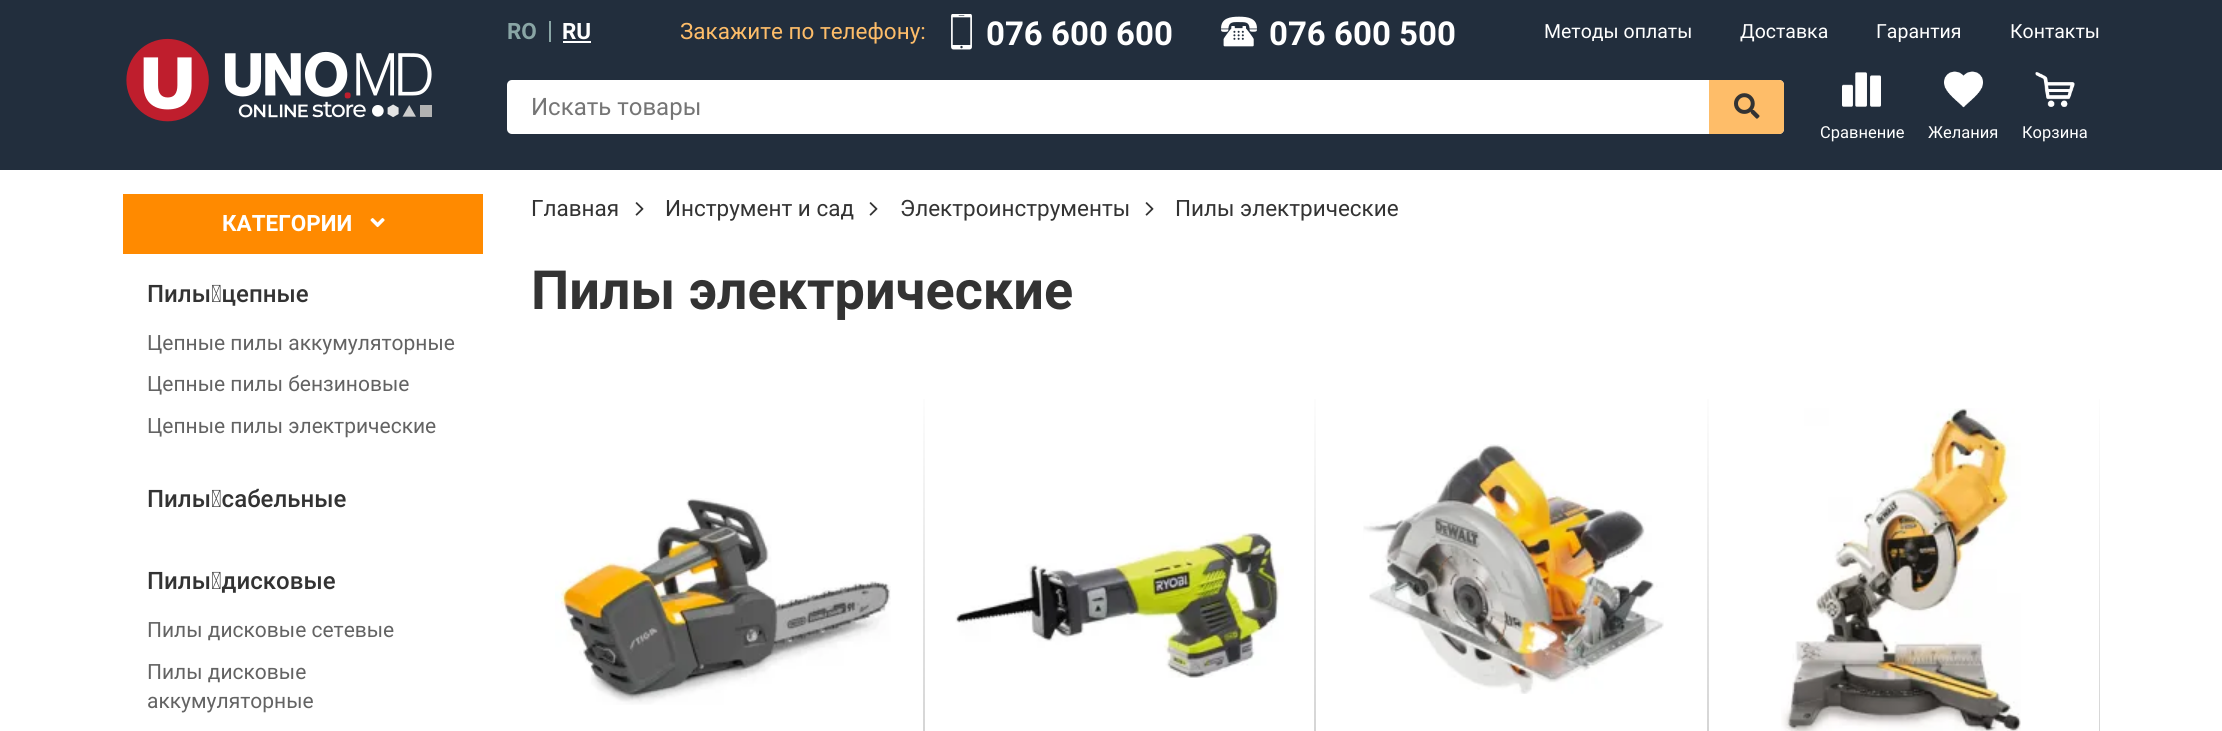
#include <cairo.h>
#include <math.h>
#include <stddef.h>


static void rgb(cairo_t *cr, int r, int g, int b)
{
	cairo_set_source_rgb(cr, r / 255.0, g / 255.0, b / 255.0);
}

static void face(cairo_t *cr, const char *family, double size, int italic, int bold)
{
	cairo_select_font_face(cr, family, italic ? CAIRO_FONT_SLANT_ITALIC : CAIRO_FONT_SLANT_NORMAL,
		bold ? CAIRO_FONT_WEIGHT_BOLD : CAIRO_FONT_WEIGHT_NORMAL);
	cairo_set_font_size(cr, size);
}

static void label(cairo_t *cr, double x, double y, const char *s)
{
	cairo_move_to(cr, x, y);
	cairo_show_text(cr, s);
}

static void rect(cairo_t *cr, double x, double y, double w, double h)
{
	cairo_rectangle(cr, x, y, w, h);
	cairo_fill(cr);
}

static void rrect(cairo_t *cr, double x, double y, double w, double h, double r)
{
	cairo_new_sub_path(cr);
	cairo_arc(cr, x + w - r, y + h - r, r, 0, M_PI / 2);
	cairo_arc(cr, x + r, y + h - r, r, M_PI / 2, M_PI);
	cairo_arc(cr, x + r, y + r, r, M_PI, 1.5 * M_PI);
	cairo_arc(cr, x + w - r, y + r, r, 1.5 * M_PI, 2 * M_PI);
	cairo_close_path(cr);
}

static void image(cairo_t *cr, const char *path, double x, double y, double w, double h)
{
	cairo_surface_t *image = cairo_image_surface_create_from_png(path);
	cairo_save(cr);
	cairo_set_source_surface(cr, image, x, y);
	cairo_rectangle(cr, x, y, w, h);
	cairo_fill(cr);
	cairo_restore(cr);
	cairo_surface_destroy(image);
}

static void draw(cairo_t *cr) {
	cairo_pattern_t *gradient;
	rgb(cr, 255, 255, 255);
	cairo_paint(cr);
	rgb(cr, 34, 46, 61);
	rect(cr, 0, 0, 2222, 170);
	image(cr, "image0.png", 126, 38, 306, 84);
	face(cr, "Roboto", 22.5, 0, 1);
	rgb(cr, 137, 165, 165);
	label(cr, 507, 39, "RO");
	rect(cr, 549, 21, 2, 21);
	rgb(cr, 255, 255, 255);
	label(cr, 562, 39, "RU");
	rect(cr, 563, 41, 28, 2);
	face(cr, "Roboto", 22.5, 0, 0);
	rgb(cr, 254, 189, 105);
	label(cr, 680, 39, "Закажите по телефону:");
	image(cr, "image1.png", 951, 14, 21, 36);
	face(cr, "Roboto", 33, 0, 1);
	rgb(cr, 255, 255, 255);
	label(cr, 986, 45, "076 600 600");
	image(cr, "image2.png", 1221, 16, 36, 31);
	label(cr, 1269, 45, "076 600 500");
	face(cr, "Roboto", 19.5, 0, 0);
	label(cr, 1544, 38, "Методы оплаты");
	label(cr, 1740, 38, "Доставка");
	label(cr, 1876, 38, "Гарантия");
	label(cr, 2010, 38, "Контакты");
	rrect(cr, 507, 80, 1277, 54, 5);
	cairo_fill(cr);
	face(cr, "Roboto", 24, 0, 0);
	rgb(cr, 117, 117, 117);
	label(cr, 531, 115, "Искать товары");
	rgb(cr, 254, 189, 105);
	cairo_new_path(cr);
	cairo_move_to(cr, 1709, 80);
	cairo_line_to(cr, 1779, 80);
	cairo_curve_to(cr, 1782, 80, 1784, 82, 1784, 85);
	cairo_line_to(cr, 1784, 129);
	cairo_curve_to(cr, 1784, 132, 1782, 134, 1779, 134);
	cairo_line_to(cr, 1709, 134);
	cairo_close_path(cr);
	cairo_fill(cr);
	image(cr, "image3.png", 1734, 93, 26, 26);
	image(cr, "image4.png", 1842, 72, 39, 35);
	face(cr, "Roboto", 16.5, 0, 0);
	rgb(cr, 255, 255, 255);
	label(cr, 1820, 138, "Сравнение");
	image(cr, "image5.png", 1944, 71, 39, 37);
	label(cr, 1928, 138, "Желания");
	image(cr, "image6.png", 2035, 72, 40, 35);
	label(cr, 2022, 138, "Корзина");
	rgb(cr, 255, 138, 0);
	rect(cr, 123, 194, 360, 60);
	face(cr, "Roboto", 22.5, 0, 1);
	rgb(cr, 255, 255, 255);
	label(cr, 222, 231, "КАТЕГОРИИ");
	image(cr, "image7.png", 370, 218, 15, 10);
	face(cr, "Roboto Medium", 24, 0, 0);
	rgb(cr, 51, 51, 51);
	label(cr, 147, 302, "Пилы цепные");
	face(cr, "Roboto", 21, 0, 0);
	rgb(cr, 99, 99, 99);
	label(cr, 147, 350, "Цепные пилы аккумуляторные");
	label(cr, 147, 391, "Цепные пилы бензиновые");
	label(cr, 147, 433, "Цепные пилы электрические");
	face(cr, "Roboto Medium", 24, 0, 0);
	rgb(cr, 51, 51, 51);
	label(cr, 147, 507, "Пилы сабельные");
	label(cr, 147, 589, "Пилы дисковые");
	face(cr, "Roboto", 21, 0, 0);
	rgb(cr, 99, 99, 99);
	label(cr, 147, 637, "Пилы дисковые сетевые");
	label(cr, 147, 679, "Пилы дисковые");
	label(cr, 147, 708, "аккумуляторные");
	face(cr, "Roboto", 22.5, 0, 0);
	rgb(cr, 51, 51, 51);
	label(cr, 531, 216, "Главная");
	image(cr, "image8.png", 635, 202, 9, 14);
	label(cr, 665, 216, "Инструмент и сад");
	image(cr, "image8.png", 869, 202, 9, 14);
	label(cr, 900, 216, "Электроинструменты");
	image(cr, "image8.png", 1145, 202, 9, 14);
	label(cr, 1175, 216, "Пилы электрические");
	face(cr, "Roboto", 54, 0, 1);
	label(cr, 531, 309, "Пилы электрические");
	image(cr, "image9.png", 555, 498, 336, 207);
	gradient = cairo_pattern_create_linear(923, 378, 923, 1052);
	cairo_pattern_add_color_stop_rgba(gradient, 0, 1, 1, 1, 1);
	cairo_pattern_add_color_stop_rgba(gradient, 1, 0.686, 0.686, 0.686, 1);
	cairo_set_source(cr, gradient);
	cairo_pattern_destroy(gradient);
	rect(cr, 923, 399, 2, 332);
	image(cr, "image10.png", 955, 532, 329, 146);
	gradient = cairo_pattern_create_linear(1315, 378, 1315, 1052);
	cairo_pattern_add_color_stop_rgba(gradient, 0, 1, 1, 1, 1);
	cairo_pattern_add_color_stop_rgba(gradient, 1, 0.686, 0.686, 0.686, 1);
	cairo_set_source(cr, gradient);
	cairo_pattern_destroy(gradient);
	rect(cr, 1314, 399, 2, 332);
	image(cr, "image11.png", 1363, 444, 301, 250);
	gradient = cairo_pattern_create_linear(1708, 378, 1708, 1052);
	cairo_pattern_add_color_stop_rgba(gradient, 0, 1, 1, 1, 1);
	cairo_pattern_add_color_stop_rgba(gradient, 1, 0.686, 0.686, 0.686, 1);
	cairo_set_source(cr, gradient);
	cairo_pattern_destroy(gradient);
	rect(cr, 1707, 399, 2, 332);
	image(cr, "image12.png", 1781, 408, 240, 323);
	gradient = cairo_pattern_create_linear(2099, 378, 2099, 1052);
	cairo_pattern_add_color_stop_rgba(gradient, 0, 1, 1, 1, 1);
	cairo_pattern_add_color_stop_rgba(gradient, 1, 0.686, 0.686, 0.686, 1);
	cairo_set_source(cr, gradient);
	cairo_pattern_destroy(gradient);
	rect(cr, 2099, 399, 1, 332);
}

int main(void) {
	cairo_surface_t *surface = cairo_image_surface_create(CAIRO_FORMAT_RGB24, 2222, 731);
	cairo_t *cr = cairo_create(surface);
	cairo_font_options_t *options = cairo_font_options_create();
	cairo_font_options_set_hint_metrics(options, CAIRO_HINT_METRICS_OFF);
	cairo_font_options_set_hint_style(options, CAIRO_HINT_STYLE_NONE);
	cairo_set_font_options(cr, options);
	cairo_set_miter_limit(cr, 4);
	draw(cr);
	cairo_surface_write_to_png(surface, "render.png");
	cairo_font_options_destroy(options);
	cairo_destroy(cr);
	cairo_surface_destroy(surface);
	return 0;
}
